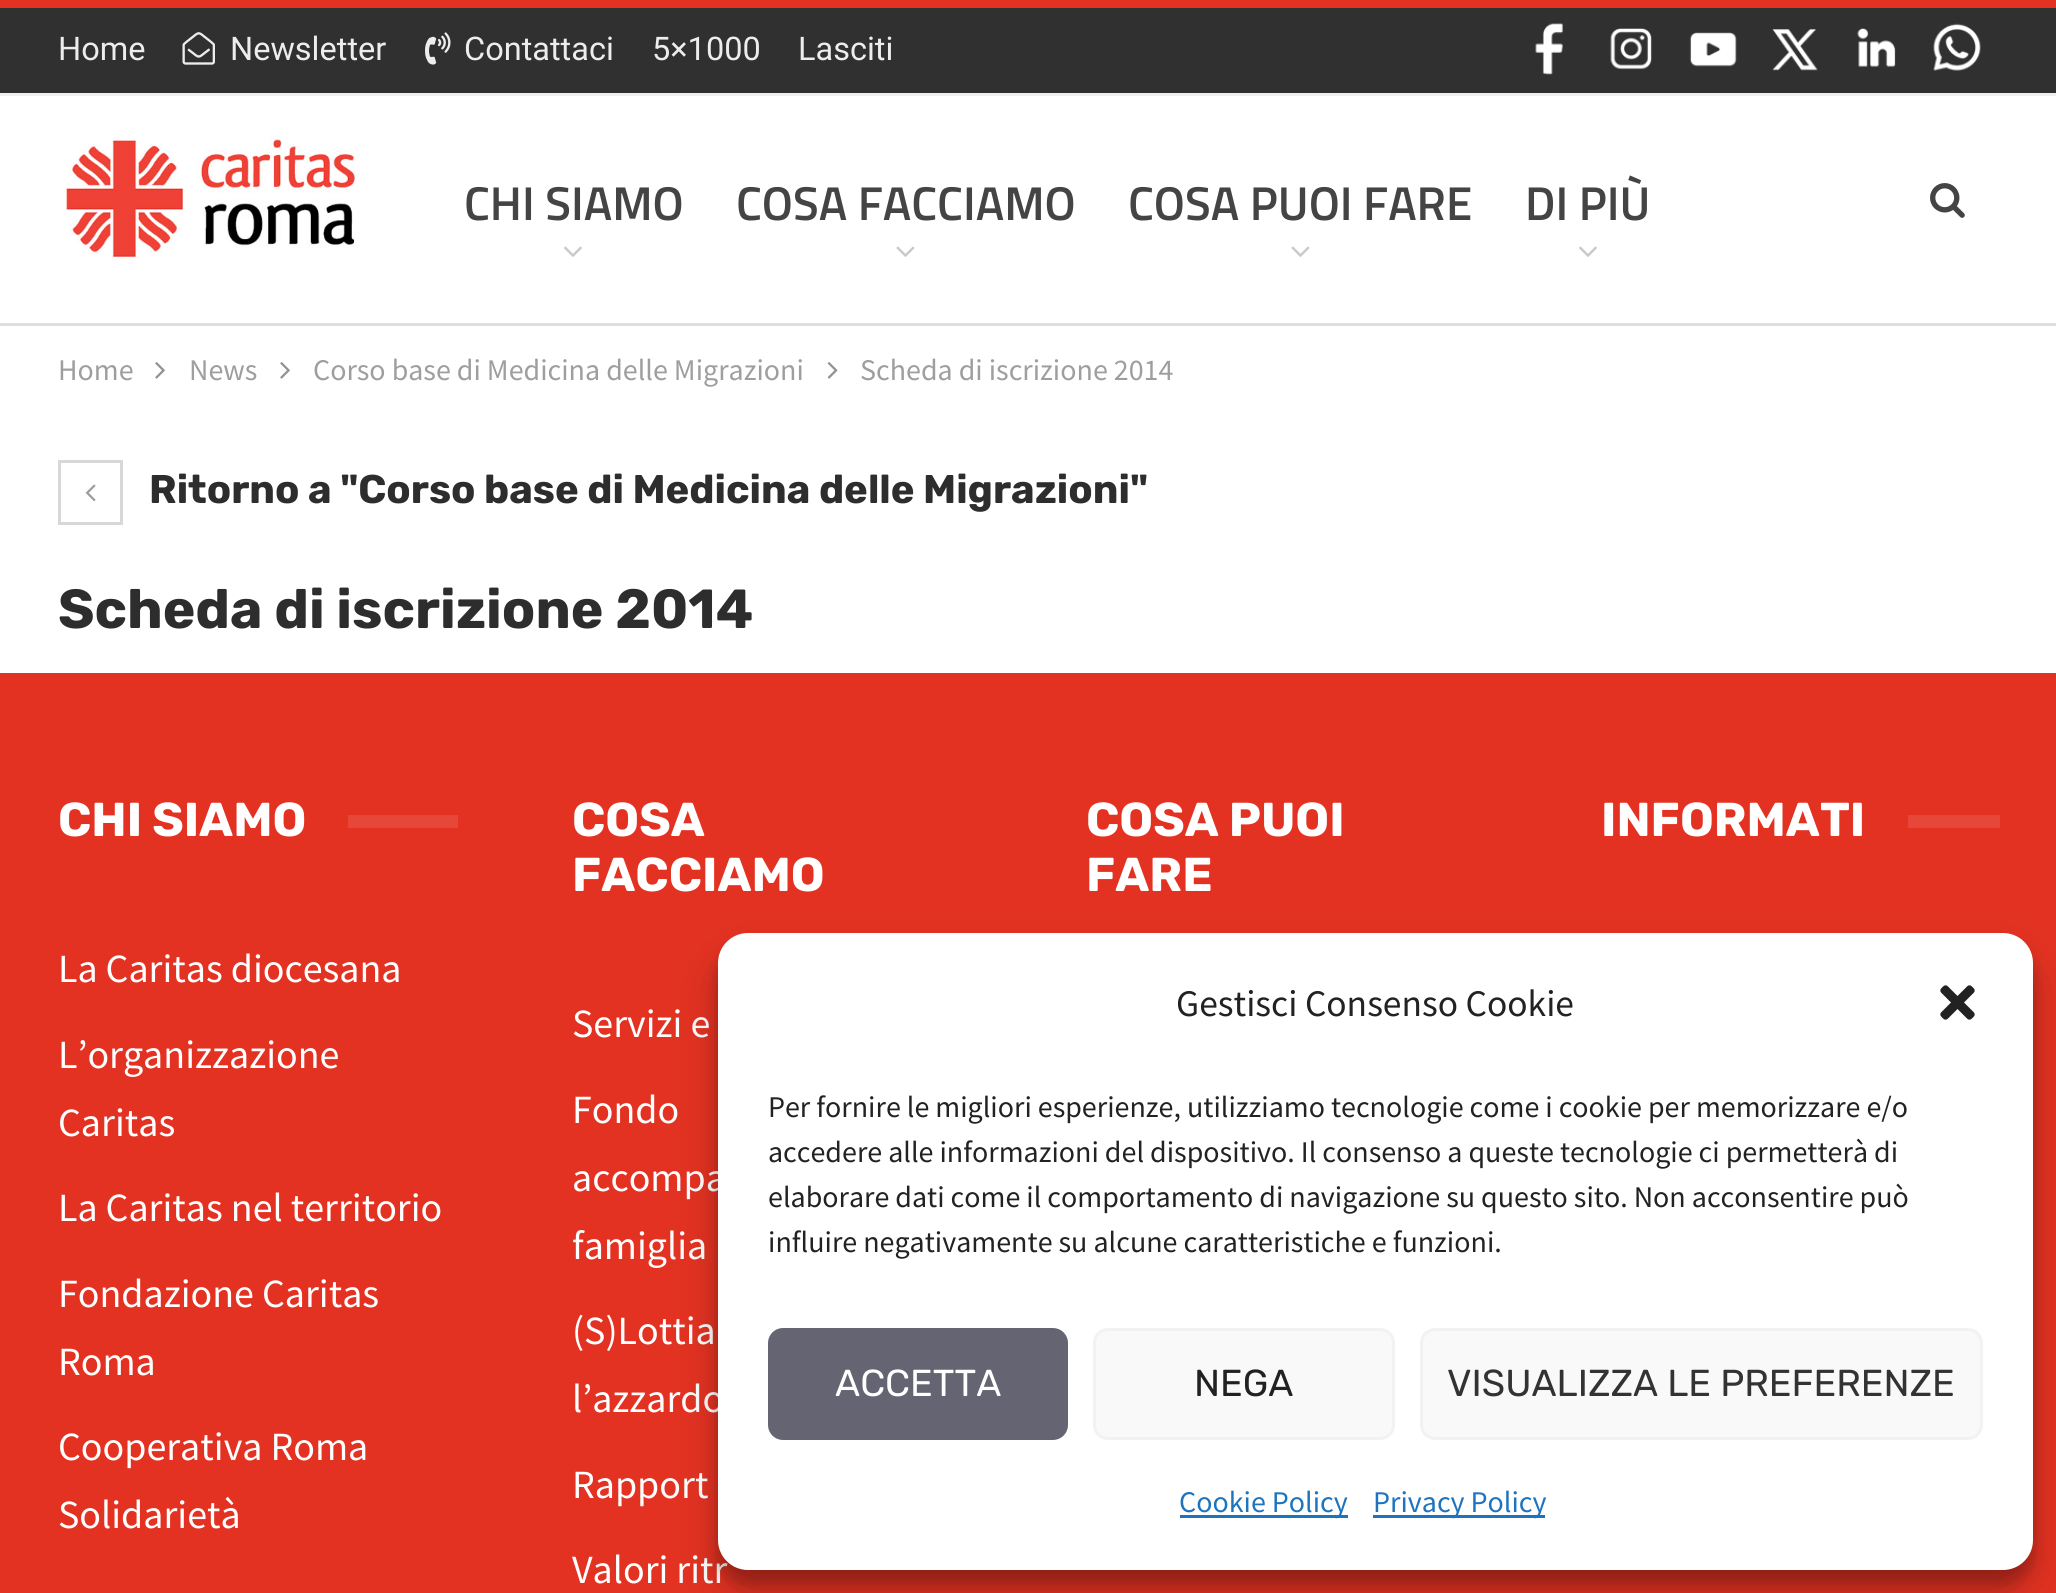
#include <cairo.h>
#include <math.h>
#include <stddef.h>


static void rgb(cairo_t *cr, int r, int g, int b)
{
	cairo_set_source_rgb(cr, r / 255.0, g / 255.0, b / 255.0);
}

static void face(cairo_t *cr, const char *family, double size, int italic, int bold)
{
	cairo_select_font_face(cr, family, italic ? CAIRO_FONT_SLANT_ITALIC : CAIRO_FONT_SLANT_NORMAL,
		bold ? CAIRO_FONT_WEIGHT_BOLD : CAIRO_FONT_WEIGHT_NORMAL);
	cairo_set_font_size(cr, size);
}

static void label(cairo_t *cr, double x, double y, const char *s)
{
	cairo_move_to(cr, x, y);
	cairo_show_text(cr, s);
}

static void rect(cairo_t *cr, double x, double y, double w, double h)
{
	cairo_rectangle(cr, x, y, w, h);
	cairo_fill(cr);
}

static void rrect(cairo_t *cr, double x, double y, double w, double h, double r)
{
	cairo_new_sub_path(cr);
	cairo_arc(cr, x + w - r, y + h - r, r, 0, M_PI / 2);
	cairo_arc(cr, x + r, y + h - r, r, M_PI / 2, M_PI);
	cairo_arc(cr, x + r, y + r, r, M_PI, 1.5 * M_PI);
	cairo_arc(cr, x + w - r, y + r, r, 1.5 * M_PI, 2 * M_PI);
	cairo_close_path(cr);
}

static void soft_shadow(cairo_t *cr, double x, double y, double w, double h, double r, double blur, double alpha)
{
	cairo_push_group_with_content(cr, CAIRO_CONTENT_ALPHA);
	cairo_set_operator(cr, CAIRO_OPERATOR_SOURCE);
	for (int i = 15; i >= -15 && fmin(w, h) + blur * i / 3 > 0; i -= 2) {
		double e = blur * i / 6;
		cairo_set_source_rgba(cr, 0, 0, 0, alpha * erfc((i - 1) / 8.5) / 2);
		rrect(cr, x - e, y - e, w + 2 * e, h + 2 * e, fmax(0, fmin(r + e + blur * .6, fmin(w, h) / 2 + e)));
		cairo_fill(cr);
	}
	cairo_pattern_t *soft = cairo_pop_group(cr);
	cairo_mask(cr, soft);
	cairo_pattern_destroy(soft);
}

static void image(cairo_t *cr, const char *path, double x, double y, double w, double h)
{
	cairo_surface_t *image = cairo_image_surface_create_from_png(path);
	cairo_save(cr);
	cairo_set_source_surface(cr, image, x, y);
	cairo_rectangle(cr, x, y, w, h);
	cairo_fill(cr);
	cairo_restore(cr);
	cairo_surface_destroy(image);
}

static void draw(cairo_t *cr) {
	rgb(cr, 255, 255, 255);
	cairo_paint(cr);
	rgb(cr, 228, 50, 34);
	rect(cr, 0, 0, 2056, 8);
	rgb(cr, 222, 222, 222);
	rect(cr, 0, 323, 2056, 3);
	rgb(cr, 48, 48, 49);
	rect(cr, 0, 8, 2056, 85);
	rgb(cr, 239, 239, 239);
	rect(cr, 0, 93, 2056, 3);
	face(cr, "Roboto", 32.5, 0, 0);
	rgb(cr, 237, 237, 237);
	label(cr, 58, 60, "Home");
	image(cr, "image0.png", 182, 32, 33, 33);
	label(cr, 230, 60, "Newsletter");
	image(cr, "image1.png", 425, 32, 26, 33);
	label(cr, 464, 60, "Contattaci");
	label(cr, 652, 60, "5×1000");
	label(cr, 798, 60, "Lasciti");
	image(cr, "image2.png", 1535, 23, 28, 52);
	image(cr, "image3.png", 1610, 28, 42, 42);
	image(cr, "image4.png", 1689, 32, 48, 35);
	image(cr, "image5.png", 1772, 29, 46, 42);
	image(cr, "image6.png", 1857, 28, 39, 39);
	image(cr, "image7.png", 1933, 23, 48, 48);
	image(cr, "image8.png", 65, 137, 294, 124);
	face(cr, "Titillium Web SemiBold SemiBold", 47.5, 0, 0);
	rgb(cr, 68, 68, 68);
	label(cr, 464, 220, "CHI SIAMO");
	image(cr, "image9.png", 564, 246, 18, 11);
	label(cr, 736, 220, "COSA FACCIAMO");
	image(cr, "image10.png", 896, 246, 19, 11);
	label(cr, 1128, 220, "COSA PUOI FARE");
	image(cr, "image10.png", 1291, 246, 19, 11);
	label(cr, 1525, 220, "DI PIÙ");
	image(cr, "image9.png", 1579, 246, 18, 11);
	image(cr, "image11.png", 1930, 183, 35, 35);
	face(cr, "Source Sans Pro", 30, 0, 0);
	rgb(cr, 158, 158, 158);
	label(cr, 58, 380, "Home");
	image(cr, "image12.png", 155, 362, 10, 17);
	label(cr, 189, 380, "News");
	image(cr, "image12.png", 280, 362, 10, 17);
	label(cr, 313, 380, "Corso base di Medicina delle Migrazioni");
	image(cr, "image13.png", 827, 362, 11, 17);
	label(cr, 860, 380, "Scheda di iscrizione 2014");
	cairo_rectangle(cr, 59.5, 461.5, 62, 62);
	rgb(cr, 216, 216, 216);
	cairo_set_line_width(cr, 3);
	cairo_stroke(cr);
	image(cr, "image14.png", 85, 484, 11, 18);
	face(cr, "Rubik", 40, 0, 1);
	rgb(cr, 45, 45, 45);
	label(cr, 149, 503, "Ritorno a \"Corso base di Medicina delle Migrazioni\"");
	face(cr, "Rubik", 55, 0, 1);
	label(cr, 58, 628, "Scheda di iscrizione 2014");
	rgb(cr, 228, 50, 34);
	rect(cr, 0, 673, 2056, 920);
	face(cr, "Rubik", 47.5, 0, 1);
	rgb(cr, 255, 255, 255);
	label(cr, 58, 836, "CHI SIAMO");
	rgb(cr, 231, 71, 56);
	rect(cr, 348, 815, 110, 13);
	face(cr, "Source Sans Pro", 40, 0, 0);
	rgb(cr, 255, 255, 255);
	label(cr, 58, 982, "La Caritas diocesana");
	label(cr, 58, 1068, "L’organizzazione");
	label(cr, 58, 1136, "Caritas");
	label(cr, 58, 1221, "La Caritas nel territorio");
	label(cr, 58, 1307, "Fondazione Caritas");
	label(cr, 58, 1375, "Roma");
	label(cr, 58, 1460, "Cooperativa Roma");
	label(cr, 58, 1528, "Solidarietà");
	face(cr, "Rubik", 47.5, 0, 1);
	label(cr, 572, 836, "COSA");
	label(cr, 572, 891, "FACCIAMO");
	face(cr, "Source Sans Pro", 40, 0, 0);
	label(cr, 572, 1037, "Servizi e");
	label(cr, 572, 1123, "Fondo");
	label(cr, 572, 1191, "accompa");
	label(cr, 572, 1259, "famiglia");
	label(cr, 572, 1344, "(S)Lottia");
	label(cr, 572, 1412, "l’azzardo");
	label(cr, 572, 1498, "Rapport");
	label(cr, 572, 1583, "Valori ritr");
	face(cr, "Rubik", 47.5, 0, 1);
	label(cr, 1086, 836, "COSA PUOI");
	label(cr, 1086, 891, "FARE");
	label(cr, 1601, 836, "INFORMATI");
	rgb(cr, 231, 71, 56);
	rect(cr, 1908, 815, 92, 13);
	rgb(cr, 0, 0, 0);
	soft_shadow(cr, 718, 948, 1315, 637, 30, 7.5, 0.23);
	soft_shadow(cr, 718, 958, 1315, 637, 30, 25, 0.19);
	rgb(cr, 255, 255, 255);
	rrect(cr, 718, 933, 1315, 637, 30);
	cairo_fill(cr);
	face(cr, "Source Sans Pro", 37.5, 0, 0);
	rgb(cr, 34, 34, 34);
	label(cr, 1176, 1016, "Gestisci Consenso Cookie");
	image(cr, "image15.png", 1940, 985, 35, 35);
	face(cr, "Source Sans Pro", 30, 0, 0);
	label(cr, 768, 1117, "Per fornire le migliori esperienze, utilizziamo tecnologie come i cookie per memorizzare e/o");
	label(cr, 768, 1162, "accedere alle informazioni del dispositivo. Il consenso a queste tecnologie ci permetterà di");
	label(cr, 768, 1207, "elaborare dati come il comportamento di navigazione su questo sito. Non acconsentire può");
	label(cr, 768, 1252, "influire negativamente su alcune caratteristiche e funzioni.");
	rgb(cr, 100, 100, 115);
	rrect(cr, 769.5, 1329.5, 297, 109, 13.5);
	cairo_fill_preserve(cr);
	cairo_stroke(cr);
	face(cr, "Rubik", 37.5, 0, 0);
	rgb(cr, 255, 255, 255);
	label(cr, 835, 1396, "ACCETTA");
	rgb(cr, 249, 249, 249);
	rrect(cr, 1094.5, 1329.5, 299, 109, 13.5);
	cairo_fill_preserve(cr);
	rgb(cr, 242, 242, 242);
	cairo_stroke(cr);
	rgb(cr, 34, 34, 34);
	label(cr, 1194, 1396, "NEGA");
	rgb(cr, 249, 249, 249);
	rrect(cr, 1421.5, 1329.5, 560, 109, 13.5);
	cairo_fill_preserve(cr);
	rgb(cr, 242, 242, 242);
	cairo_stroke(cr);
	rgb(cr, 51, 51, 51);
	label(cr, 1447, 1396, "VISUALIZZA LE PREFERENZE");
	rgb(cr, 30, 115, 190);
	rect(cr, 1180, 1515, 168, 3);
	face(cr, "Source Sans Pro", 30, 0, 0);
	label(cr, 1179, 1512, "Cookie Policy");
	rect(cr, 1373, 1515, 172, 3);
	label(cr, 1373, 1512, "Privacy Policy");
}

int main(void) {
	cairo_surface_t *surface = cairo_image_surface_create(CAIRO_FORMAT_RGB24, 2056, 1593);
	cairo_t *cr = cairo_create(surface);
	cairo_font_options_t *options = cairo_font_options_create();
	cairo_font_options_set_hint_metrics(options, CAIRO_HINT_METRICS_OFF);
	cairo_font_options_set_hint_style(options, CAIRO_HINT_STYLE_NONE);
	cairo_set_font_options(cr, options);
	cairo_set_miter_limit(cr, 4);
	draw(cr);
	cairo_surface_write_to_png(surface, "render.png");
	cairo_font_options_destroy(options);
	cairo_destroy(cr);
	cairo_surface_destroy(surface);
	return 0;
}
